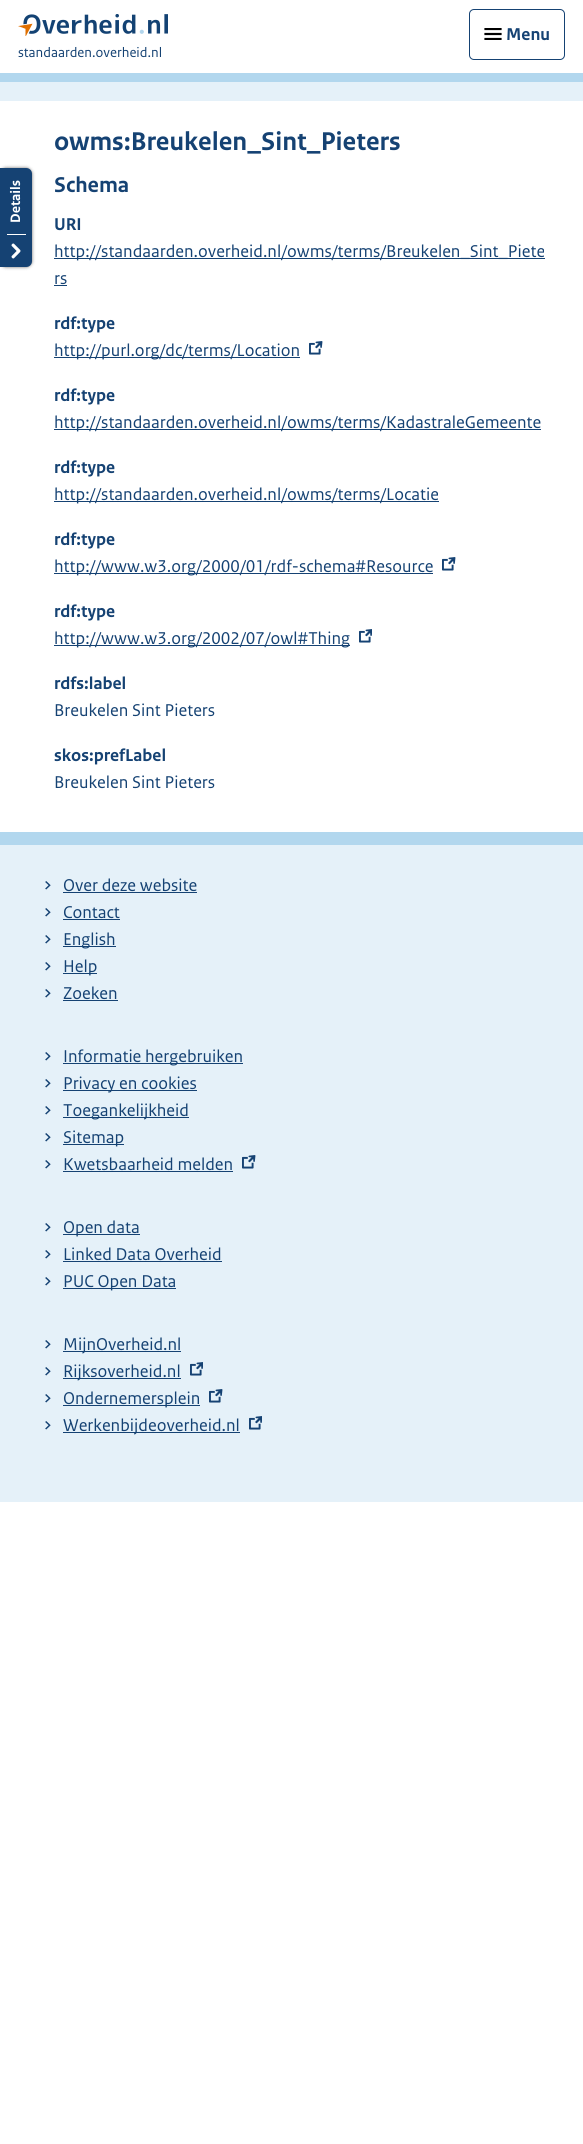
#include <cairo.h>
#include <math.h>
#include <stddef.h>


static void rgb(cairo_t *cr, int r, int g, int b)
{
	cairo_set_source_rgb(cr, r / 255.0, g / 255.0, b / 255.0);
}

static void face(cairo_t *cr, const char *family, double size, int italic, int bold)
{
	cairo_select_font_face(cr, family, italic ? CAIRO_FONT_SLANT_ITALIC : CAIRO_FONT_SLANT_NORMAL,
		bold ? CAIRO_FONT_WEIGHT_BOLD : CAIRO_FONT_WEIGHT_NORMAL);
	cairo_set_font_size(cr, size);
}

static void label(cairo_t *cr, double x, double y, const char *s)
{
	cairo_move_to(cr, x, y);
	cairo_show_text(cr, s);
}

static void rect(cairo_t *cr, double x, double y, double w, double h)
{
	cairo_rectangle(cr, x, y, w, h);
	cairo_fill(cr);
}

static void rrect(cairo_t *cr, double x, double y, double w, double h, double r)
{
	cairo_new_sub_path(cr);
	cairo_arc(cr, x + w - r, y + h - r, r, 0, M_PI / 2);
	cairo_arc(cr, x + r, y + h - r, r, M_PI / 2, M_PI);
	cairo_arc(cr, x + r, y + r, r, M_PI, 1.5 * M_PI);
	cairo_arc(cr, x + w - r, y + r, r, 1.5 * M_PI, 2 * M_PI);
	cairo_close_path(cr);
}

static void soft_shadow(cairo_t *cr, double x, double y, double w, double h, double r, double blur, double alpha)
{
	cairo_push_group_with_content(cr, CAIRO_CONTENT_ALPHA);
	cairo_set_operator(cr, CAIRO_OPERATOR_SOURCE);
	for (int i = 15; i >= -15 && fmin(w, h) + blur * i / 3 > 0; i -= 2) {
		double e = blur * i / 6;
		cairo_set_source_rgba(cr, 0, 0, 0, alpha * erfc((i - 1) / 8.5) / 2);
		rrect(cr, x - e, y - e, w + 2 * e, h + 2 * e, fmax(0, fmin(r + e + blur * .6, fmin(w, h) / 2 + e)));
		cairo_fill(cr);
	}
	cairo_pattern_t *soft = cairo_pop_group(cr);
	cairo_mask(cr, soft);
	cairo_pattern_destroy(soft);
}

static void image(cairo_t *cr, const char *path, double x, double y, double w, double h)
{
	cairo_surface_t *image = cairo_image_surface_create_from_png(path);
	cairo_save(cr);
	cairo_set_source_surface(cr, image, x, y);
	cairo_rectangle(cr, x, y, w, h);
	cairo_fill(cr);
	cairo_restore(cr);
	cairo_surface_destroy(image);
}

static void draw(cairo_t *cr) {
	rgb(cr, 255, 255, 255);
	cairo_paint(cr);
	rgb(cr, 178, 215, 238);
	rect(cr, 0, 73, 583, 9);
	cairo_save(cr);
	cairo_rectangle(cr, 484, 28, 18, 12);
	cairo_clip(cr);
	cairo_new_path(cr);
	cairo_move_to(cr, 485.5, 29);
	cairo_line_to(cr, 500.5, 29);
	cairo_move_to(cr, 485.5, 34);
	cairo_line_to(cr, 500.5, 34);
	cairo_move_to(cr, 485.5, 39);
	cairo_line_to(cr, 500.5, 39);
	rgb(cr, 0, 0, 0);
	cairo_set_line_width(cr, 2.2);
	cairo_set_line_cap(cr, CAIRO_LINE_CAP_SQUARE);
	cairo_stroke(cr);
	cairo_restore(cr);
	rrect(cr, 469.5, 9.5, 95, 50, 4.5);
	rgb(cr, 21, 66, 115);
	cairo_set_line_width(cr, 1);
	cairo_stroke(cr);
	face(cr, "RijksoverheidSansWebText", 18, 0, 1);
	label(cr, 506, 40, "Menu");
	image(cr, "image0.png", 18, 14, 150, 22);
	face(cr, "RijksoverheidSansWebText", 14.4, 0, 0);
	label(cr, 18, 57, "standaarden.overheid.nl");
	rgb(cr, 229, 241, 249);
	rect(cr, 0, 82, 583, 19);
	rgb(cr, 0, 0, 0);
	soft_shadow(cr, 1, 169, 30, 97, 5, 2, 1);
	rgb(cr, 21, 66, 115);
	cairo_new_path(cr);
	cairo_move_to(cr, 0, 168);
	cairo_line_to(cr, 26, 168);
	cairo_curve_to(cr, 29.5, 168, 32, 170.5, 32, 174);
	cairo_line_to(cr, 32, 261);
	cairo_curve_to(cr, 32, 264.5, 29.5, 267, 26, 267);
	cairo_line_to(cr, 0, 267);
	cairo_close_path(cr);
	cairo_fill(cr);
	image(cr, "image1.png", 11, 243, 10, 16);
	face(cr, "RijksoverheidSansWebText", 14.4, 0, 1);
	rgb(cr, 255, 255, 255);
	cairo_save(cr);
	cairo_translate(cr, 20, 223);
	cairo_rotate(cr, -90 * M_PI / 180);
	label(cr, 0, 0, "Details");
	cairo_restore(cr);
	rect(cr, 7, 234, 19, 1);
	face(cr, "RijksoverheidSansWebText", 27, 0, 1);
	rgb(cr, 21, 66, 115);
	label(cr, 54, 150, "owms:Breukelen_Sint_Pieters");
	face(cr, "RijksoverheidSansWebText", 22.5, 0, 1);
	label(cr, 54, 192, "Schema");
	face(cr, "RijksoverheidSansWebText", 18, 0, 1);
	label(cr, 54, 230, "URI");
	rect(cr, 54, 258, 491, 1);
	face(cr, "RijksoverheidSansWebText", 18, 0, 0);
	label(cr, 54, 257, "http://standaarden.overheid.nl/owms/terms/Breukelen_Sint_Piete");
	label(cr, 54, 284, "rs");
	rect(cr, 54, 285, 13, 1);
	face(cr, "RijksoverheidSansWebText", 18, 0, 1);
	label(cr, 54, 329, "rdf:type");
	rect(cr, 54, 357, 246, 1);
	face(cr, "RijksoverheidSansWebText", 18, 0, 0);
	label(cr, 54, 356, "http://purl.org/dc/terms/Location");
	image(cr, "image2.png", 309, 341, 14, 14);
	face(cr, "RijksoverheidSansWebText", 18, 0, 1);
	label(cr, 54, 401, "rdf:type");
	rect(cr, 54, 429, 487, 1);
	face(cr, "RijksoverheidSansWebText", 18, 0, 0);
	label(cr, 54, 428, "http://standaarden.overheid.nl/owms/terms/KadastraleGemeente");
	face(cr, "RijksoverheidSansWebText", 18, 0, 1);
	label(cr, 54, 473, "rdf:type");
	rect(cr, 54, 501, 385, 1);
	face(cr, "RijksoverheidSansWebText", 18, 0, 0);
	label(cr, 54, 500, "http://standaarden.overheid.nl/owms/terms/Locatie");
	face(cr, "RijksoverheidSansWebText", 18, 0, 1);
	label(cr, 54, 545, "rdf:type");
	rect(cr, 54, 573, 379, 1);
	face(cr, "RijksoverheidSansWebText", 18, 0, 0);
	label(cr, 54, 572, "http://www.w3.org/2000/01/rdf-schema#Resource");
	image(cr, "image2.png", 442, 557, 14, 14);
	face(cr, "RijksoverheidSansWebText", 18, 0, 1);
	label(cr, 54, 617, "rdf:type");
	rect(cr, 54, 645, 296, 1);
	face(cr, "RijksoverheidSansWebText", 18, 0, 0);
	label(cr, 54, 644, "http://www.w3.org/2002/07/owl#Thing");
	image(cr, "image3.png", 359, 629, 13, 14);
	face(cr, "RijksoverheidSansWebText", 18, 0, 1);
	label(cr, 54, 689, "rdfs:label");
	face(cr, "RijksoverheidSansWebText", 18, 0, 0);
	label(cr, 54, 716, "Breukelen Sint Pieters");
	face(cr, "RijksoverheidSansWebText", 18, 0, 1);
	label(cr, 54, 761, "skos:prefLabel");
	face(cr, "RijksoverheidSansWebText", 18, 0, 0);
	label(cr, 54, 788, "Breukelen Sint Pieters");
	rgb(cr, 229, 241, 249);
	rect(cr, 0, 845, 583, 657);
	rgb(cr, 178, 215, 238);
	rect(cr, 0, 832, 583, 13);
	image(cr, "image4.png", 45, 881, 6, 9);
	rgb(cr, 21, 66, 115);
	label(cr, 63, 891, "Over deze website");
	rect(cr, 63, 892, 134, 1);
	image(cr, "image4.png", 45, 908, 6, 9);
	label(cr, 63, 918, "Contact");
	rect(cr, 63, 919, 57, 1);
	image(cr, "image4.png", 45, 935, 6, 9);
	rect(cr, 63, 946, 53, 1);
	label(cr, 63, 945, "English");
	image(cr, "image4.png", 45, 962, 6, 9);
	rect(cr, 63, 973, 34, 1);
	label(cr, 63, 972, "Help");
	image(cr, "image4.png", 45, 989, 6, 9);
	label(cr, 63, 999, "Zoeken");
	rect(cr, 63, 1000, 55, 1);
	image(cr, "image4.png", 45, 1052, 6, 9);
	rect(cr, 63, 1063, 180, 1);
	label(cr, 63, 1062, "Informatie hergebruiken");
	image(cr, "image4.png", 45, 1079, 6, 9);
	rect(cr, 63, 1090, 134, 1);
	label(cr, 63, 1089, "Privacy en cookies");
	image(cr, "image4.png", 45, 1106, 6, 9);
	rect(cr, 63, 1117, 126, 1);
	label(cr, 63, 1116, "Toegankelijkheid");
	image(cr, "image4.png", 45, 1133, 6, 9);
	rect(cr, 63, 1144, 61, 1);
	label(cr, 63, 1143, "Sitemap");
	image(cr, "image4.png", 45, 1160, 6, 9);
	label(cr, 63, 1170, "Kwetsbaarheid melden");
	rect(cr, 63, 1171, 170, 1);
	image(cr, "image5.png", 242, 1155, 14, 14);
	image(cr, "image4.png", 45, 1223, 6, 9);
	rect(cr, 63, 1234, 77, 1);
	label(cr, 63, 1233, "Open data");
	image(cr, "image4.png", 45, 1250, 6, 9);
	label(cr, 63, 1260, "Linked Data Overheid");
	rect(cr, 63, 1261, 159, 1);
	image(cr, "image4.png", 45, 1277, 6, 9);
	rect(cr, 63, 1288, 113, 1);
	label(cr, 63, 1287, "PUC Open Data");
	image(cr, "image4.png", 45, 1340, 6, 9);
	rect(cr, 63, 1351, 118, 1);
	label(cr, 63, 1350, "MijnOverheid.nl");
	image(cr, "image4.png", 45, 1367, 6, 9);
	rect(cr, 63, 1378, 118, 1);
	label(cr, 63, 1377, "Rijksoverheid.nl");
	image(cr, "image6.png", 190, 1362, 13, 14);
	image(cr, "image4.png", 45, 1394, 6, 9);
	rect(cr, 63, 1405, 137, 1);
	label(cr, 63, 1404, "Ondernemersplein");
	image(cr, "image5.png", 209, 1389, 14, 14);
	image(cr, "image4.png", 45, 1421, 6, 9);
	rect(cr, 63, 1432, 177, 1);
	label(cr, 63, 1431, "Werkenbijdeoverheid.nl");
	image(cr, "image6.png", 249, 1416, 13, 14);
}

int main(void) {
	cairo_surface_t *surface = cairo_image_surface_create(CAIRO_FORMAT_RGB24, 583, 2144);
	cairo_t *cr = cairo_create(surface);
	cairo_font_options_t *options = cairo_font_options_create();
	cairo_font_options_set_hint_metrics(options, CAIRO_HINT_METRICS_OFF);
	cairo_font_options_set_hint_style(options, CAIRO_HINT_STYLE_NONE);
	cairo_set_font_options(cr, options);
	cairo_set_miter_limit(cr, 4);
	draw(cr);
	cairo_surface_write_to_png(surface, "render.png");
	cairo_font_options_destroy(options);
	cairo_destroy(cr);
	cairo_surface_destroy(surface);
	return 0;
}
